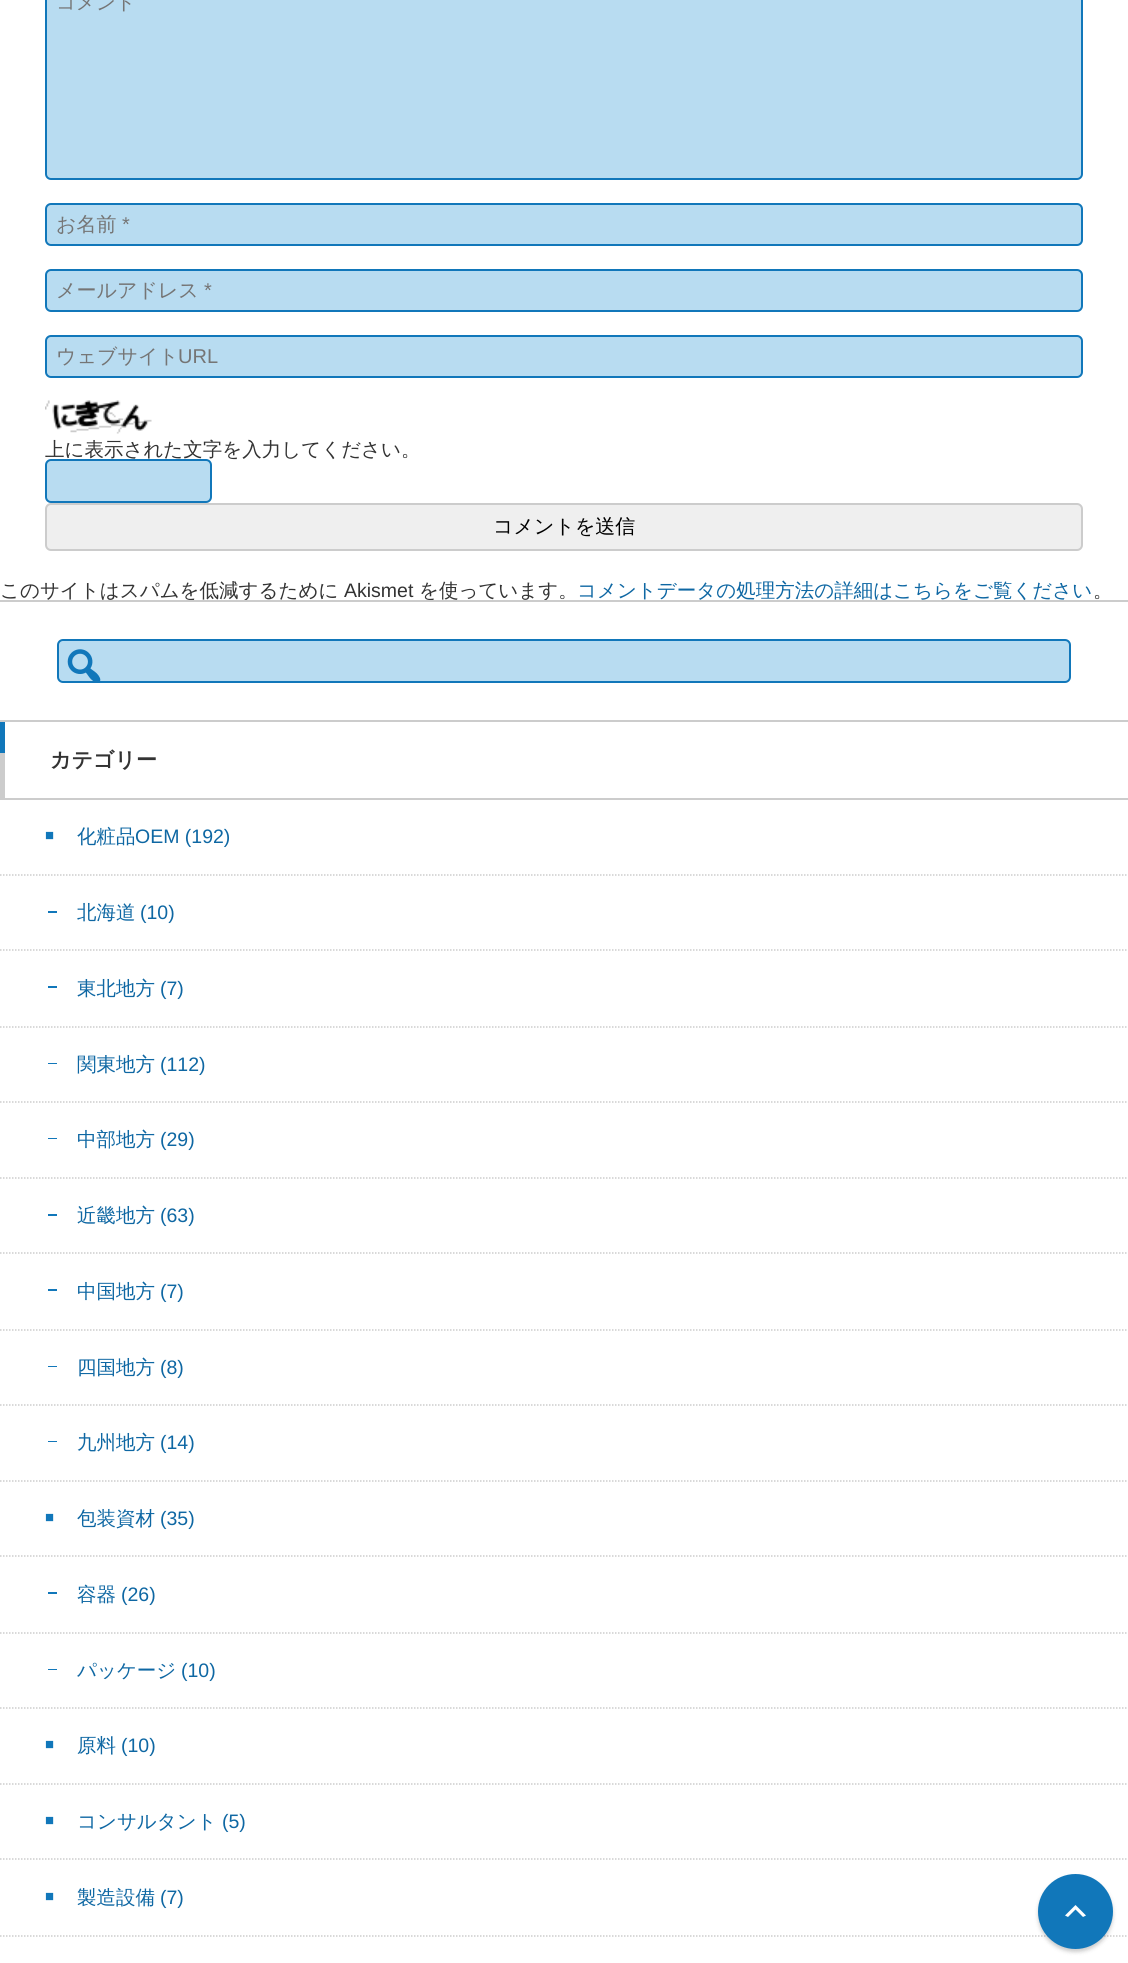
#include <cairo.h>
#include <math.h>
#include <stddef.h>


static void rgb(cairo_t *cr, int r, int g, int b)
{
	cairo_set_source_rgb(cr, r / 255.0, g / 255.0, b / 255.0);
}

static void face(cairo_t *cr, const char *family, double size, int italic, int bold)
{
	cairo_select_font_face(cr, family, italic ? CAIRO_FONT_SLANT_ITALIC : CAIRO_FONT_SLANT_NORMAL,
		bold ? CAIRO_FONT_WEIGHT_BOLD : CAIRO_FONT_WEIGHT_NORMAL);
	cairo_set_font_size(cr, size);
}

static void label(cairo_t *cr, double x, double y, const char *s)
{
	cairo_move_to(cr, x, y);
	cairo_show_text(cr, s);
}

static void rect(cairo_t *cr, double x, double y, double w, double h)
{
	cairo_rectangle(cr, x, y, w, h);
	cairo_fill(cr);
}

static void rrect(cairo_t *cr, double x, double y, double w, double h, double r)
{
	cairo_new_sub_path(cr);
	cairo_arc(cr, x + w - r, y + h - r, r, 0, M_PI / 2);
	cairo_arc(cr, x + r, y + h - r, r, M_PI / 2, M_PI);
	cairo_arc(cr, x + r, y + r, r, M_PI, 1.5 * M_PI);
	cairo_arc(cr, x + w - r, y + r, r, 1.5 * M_PI, 2 * M_PI);
	cairo_close_path(cr);
}

static void soft_shadow(cairo_t *cr, double x, double y, double w, double h, double r, double blur, double alpha)
{
	cairo_push_group_with_content(cr, CAIRO_CONTENT_ALPHA);
	cairo_set_operator(cr, CAIRO_OPERATOR_SOURCE);
	for (int i = 15; i >= -15 && fmin(w, h) + blur * i / 3 > 0; i -= 2) {
		double e = blur * i / 6;
		cairo_set_source_rgba(cr, 0, 0, 0, alpha * erfc((i - 1) / 8.5) / 2);
		rrect(cr, x - e, y - e, w + 2 * e, h + 2 * e, fmax(0, fmin(r + e + blur * .6, fmin(w, h) / 2 + e)));
		cairo_fill(cr);
	}
	cairo_pattern_t *soft = cairo_pop_group(cr);
	cairo_mask(cr, soft);
	cairo_pattern_destroy(soft);
}

static void image(cairo_t *cr, const char *path, double x, double y, double w, double h)
{
	cairo_surface_t *image = cairo_image_surface_create_from_png(path);
	cairo_save(cr);
	cairo_set_source_surface(cr, image, x, y);
	cairo_rectangle(cr, x, y, w, h);
	cairo_fill(cr);
	cairo_restore(cr);
	cairo_surface_destroy(image);
}

static void draw(cairo_t *cr) {
	rgb(cr, 255, 255, 255);
	cairo_paint(cr);
	rgb(cr, 184, 220, 241);
	rrect(cr, 46, -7, 1036, 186, 5);
	cairo_fill_preserve(cr);
	rgb(cr, 17, 119, 186);
	cairo_stroke(cr);
	face(cr, "WenQuanYi Zen Hei Medium", 19.5, 0, 0);
	rgb(cr, 117, 117, 117);
	label(cr, 56, 9, "コメント");
	rgb(cr, 184, 220, 241);
	rrect(cr, 46, 204, 1036, 41, 5);
	cairo_fill_preserve(cr);
	rgb(cr, 17, 119, 186);
	cairo_stroke(cr);
	face(cr, "WenQuanYi Zen Hei Medium", 20, 0, 0);
	rgb(cr, 117, 117, 117);
	label(cr, 56, 231, "お名前");
	face(cr, "Liberation Sans", 20, 0, 0);
	label(cr, 122, 231, "*");
	rgb(cr, 184, 220, 241);
	rrect(cr, 46, 270, 1036, 41, 5);
	cairo_fill_preserve(cr);
	rgb(cr, 17, 119, 186);
	cairo_stroke(cr);
	face(cr, "WenQuanYi Zen Hei Medium", 20, 0, 0);
	rgb(cr, 117, 117, 117);
	label(cr, 56, 297, "メールアドレス");
	face(cr, "Liberation Sans", 20, 0, 0);
	label(cr, 204, 297, "*");
	rgb(cr, 184, 220, 241);
	rrect(cr, 46, 336, 1036, 41, 5);
	cairo_fill_preserve(cr);
	rgb(cr, 17, 119, 186);
	cairo_stroke(cr);
	face(cr, "WenQuanYi Zen Hei Medium", 20, 0, 0);
	rgb(cr, 117, 117, 117);
	label(cr, 56, 363, "ウェブサイト");
	face(cr, "Liberation Sans", 20, 0, 0);
	label(cr, 178, 363, "URL");
	image(cr, "image0.png", 45, 400, 107, 34);
	face(cr, "WenQuanYi Zen Hei Medium", 19.5, 0, 0);
	rgb(cr, 51, 51, 51);
	label(cr, 45, 456, "上に表示された文字を入力してください。");
	rgb(cr, 184, 220, 241);
	rrect(cr, 46, 460, 165, 42, 5);
	cairo_fill_preserve(cr);
	rgb(cr, 17, 119, 186);
	cairo_stroke(cr);
	rgb(cr, 239, 239, 239);
	rrect(cr, 46, 504, 1036, 46, 5);
	cairo_fill_preserve(cr);
	rgb(cr, 204, 204, 204);
	cairo_stroke(cr);
	face(cr, "WenQuanYi Zen Hei Medium", 20, 0, 0);
	rgb(cr, 0, 0, 0);
	label(cr, 493, 533, "コメントを送信");
	face(cr, "WenQuanYi Zen Hei Medium", 19.5, 0, 0);
	rgb(cr, 51, 51, 51);
	label(cr, 0, 597, "このサイトはスパムを低減するために");
	face(cr, "Liberation Sans", 19.5, 0, 0);
	label(cr, 344, 597, "Akismet");
	face(cr, "WenQuanYi Zen Hei Medium", 19.5, 0, 0);
	label(cr, 419, 597, "を使っています。");
	rgb(cr, 14, 103, 163);
	label(cr, 577, 597, "コメントデータの処理方法の詳細はこちらをご覧ください");
	rgb(cr, 51, 51, 51);
	label(cr, 1093, 597, "。");
	rgb(cr, 204, 204, 204);
	rect(cr, 0, 600, 1128, 2);
	rgb(cr, 184, 220, 241);
	rrect(cr, 58, 640, 1012, 42, 5);
	cairo_fill_preserve(cr);
	rgb(cr, 17, 119, 186);
	cairo_stroke(cr);
	image(cr, "image1.png", 67, 649, 34, 32);
	rgb(cr, 204, 204, 204);
	rect(cr, 0, 720, 1128, 2);
	rect(cr, 0, 798, 1128, 2);
	rect(cr, 0, 753, 5, 47);
	rgb(cr, 17, 119, 186);
	rect(cr, 0, 722, 5, 31);
	face(cr, "WenQuanYi Zen Hei", 21, 0, 1);
	rgb(cr, 51, 51, 51);
	label(cr, 50, 767, "カテゴリー");
	cairo_new_path(cr);
	cairo_move_to(cr, 0, 1481);
	cairo_line_to(cr, 1128, 1481);
	rgb(cr, 204, 204, 204);
	cairo_set_line_width(cr, 1.5);
	cairo_set_dash(cr, (double[]){1.5, 1.5}, 2, 0);
	cairo_stroke(cr);
	face(cr, "Liberation Sans", 15, 0, 0);
	rgb(cr, 17, 119, 186);
	label(cr, 45, 840, "■");
	face(cr, "WenQuanYi Zen Hei Medium", 19.5, 0, 0);
	rgb(cr, 14, 103, 163);
	label(cr, 77, 843, "化粧品");
	face(cr, "Liberation Sans", 19.5, 0, 0);
	label(cr, 135, 843, "OEM (192)");
	cairo_new_path(cr);
	cairo_move_to(cr, 0, 875);
	cairo_line_to(cr, 1128, 875);
	rgb(cr, 204, 204, 204);
	cairo_stroke(cr);
	cairo_new_path(cr);
	cairo_move_to(cr, 0, 950);
	cairo_line_to(cr, 1128, 950);
	cairo_stroke(cr);
	rgb(cr, 17, 119, 186);
	rect(cr, 48, 911, 9, 2);
	face(cr, "WenQuanYi Zen Hei Medium", 19.5, 0, 0);
	rgb(cr, 14, 103, 163);
	label(cr, 77, 919, "北海道");
	face(cr, "Liberation Sans", 19.5, 0, 0);
	label(cr, 140, 919, "(10)");
	cairo_new_path(cr);
	cairo_move_to(cr, 0, 1027);
	cairo_line_to(cr, 1128, 1027);
	rgb(cr, 204, 204, 204);
	cairo_stroke(cr);
	rgb(cr, 17, 119, 186);
	rect(cr, 48, 986, 9, 2);
	face(cr, "WenQuanYi Zen Hei Medium", 19.5, 0, 0);
	rgb(cr, 14, 103, 163);
	label(cr, 77, 995, "東北地方");
	face(cr, "Liberation Sans", 19.5, 0, 0);
	label(cr, 160, 995, "(7)");
	cairo_new_path(cr);
	cairo_move_to(cr, 0, 1102);
	cairo_line_to(cr, 1128, 1102);
	rgb(cr, 204, 204, 204);
	cairo_stroke(cr);
	rgb(cr, 17, 119, 186);
	rect(cr, 48, 1063, 9, 1);
	face(cr, "WenQuanYi Zen Hei Medium", 19.5, 0, 0);
	rgb(cr, 14, 103, 163);
	label(cr, 77, 1071, "関東地方");
	face(cr, "Liberation Sans", 19.5, 0, 0);
	label(cr, 160, 1071, "(112)");
	cairo_new_path(cr);
	cairo_move_to(cr, 0, 1178);
	cairo_line_to(cr, 1128, 1178);
	rgb(cr, 204, 204, 204);
	cairo_stroke(cr);
	rgb(cr, 17, 119, 186);
	rect(cr, 48, 1138, 9, 1);
	face(cr, "WenQuanYi Zen Hei Medium", 19.5, 0, 0);
	rgb(cr, 14, 103, 163);
	label(cr, 77, 1146, "中部地方");
	face(cr, "Liberation Sans", 19.5, 0, 0);
	label(cr, 160, 1146, "(29)");
	cairo_new_path(cr);
	cairo_move_to(cr, 0, 1253);
	cairo_line_to(cr, 1128, 1253);
	rgb(cr, 204, 204, 204);
	cairo_stroke(cr);
	rgb(cr, 17, 119, 186);
	rect(cr, 48, 1214, 9, 2);
	face(cr, "WenQuanYi Zen Hei Medium", 19.5, 0, 0);
	rgb(cr, 14, 103, 163);
	label(cr, 77, 1222, "近畿地方");
	face(cr, "Liberation Sans", 19.5, 0, 0);
	label(cr, 160, 1222, "(63)");
	cairo_new_path(cr);
	cairo_move_to(cr, 0, 1330);
	cairo_line_to(cr, 1128, 1330);
	rgb(cr, 204, 204, 204);
	cairo_stroke(cr);
	rgb(cr, 17, 119, 186);
	rect(cr, 48, 1289, 9, 2);
	face(cr, "WenQuanYi Zen Hei Medium", 19.5, 0, 0);
	rgb(cr, 14, 103, 163);
	label(cr, 77, 1298, "中国地方");
	face(cr, "Liberation Sans", 19.5, 0, 0);
	label(cr, 160, 1298, "(7)");
	cairo_new_path(cr);
	cairo_move_to(cr, 0, 1405);
	cairo_line_to(cr, 1128, 1405);
	rgb(cr, 204, 204, 204);
	cairo_stroke(cr);
	rgb(cr, 17, 119, 186);
	rect(cr, 48, 1366, 9, 1);
	face(cr, "WenQuanYi Zen Hei Medium", 19.5, 0, 0);
	rgb(cr, 14, 103, 163);
	label(cr, 77, 1374, "四国地方");
	face(cr, "Liberation Sans", 19.5, 0, 0);
	label(cr, 160, 1374, "(8)");
	rgb(cr, 17, 119, 186);
	rect(cr, 48, 1441, 9, 1);
	face(cr, "WenQuanYi Zen Hei Medium", 19.5, 0, 0);
	rgb(cr, 14, 103, 163);
	label(cr, 77, 1449, "九州地方");
	face(cr, "Liberation Sans", 19.5, 0, 0);
	label(cr, 160, 1449, "(14)");
	cairo_new_path(cr);
	cairo_move_to(cr, 0, 1708);
	cairo_line_to(cr, 1128, 1708);
	rgb(cr, 204, 204, 204);
	cairo_stroke(cr);
	face(cr, "Liberation Sans", 15, 0, 0);
	rgb(cr, 17, 119, 186);
	label(cr, 45, 1522, "■");
	face(cr, "WenQuanYi Zen Hei Medium", 19.5, 0, 0);
	rgb(cr, 14, 103, 163);
	label(cr, 77, 1525, "包装資材");
	face(cr, "Liberation Sans", 19.5, 0, 0);
	label(cr, 160, 1525, "(35)");
	cairo_new_path(cr);
	cairo_move_to(cr, 0, 1556);
	cairo_line_to(cr, 1128, 1556);
	rgb(cr, 204, 204, 204);
	cairo_stroke(cr);
	cairo_new_path(cr);
	cairo_move_to(cr, 0, 1633);
	cairo_line_to(cr, 1128, 1633);
	cairo_stroke(cr);
	rgb(cr, 17, 119, 186);
	rect(cr, 48, 1592, 9, 2);
	face(cr, "WenQuanYi Zen Hei Medium", 19.5, 0, 0);
	rgb(cr, 14, 103, 163);
	label(cr, 77, 1601, "容器");
	face(cr, "Liberation Sans", 19.5, 0, 0);
	label(cr, 121, 1601, "(26)");
	rgb(cr, 17, 119, 186);
	rect(cr, 48, 1669, 9, 1);
	face(cr, "WenQuanYi Zen Hei Medium", 19.5, 0, 0);
	rgb(cr, 14, 103, 163);
	label(cr, 77, 1677, "パッケージ");
	face(cr, "Liberation Sans", 19.5, 0, 0);
	label(cr, 181, 1677, "(10)");
	cairo_new_path(cr);
	cairo_move_to(cr, 0, 1784);
	cairo_line_to(cr, 1128, 1784);
	rgb(cr, 204, 204, 204);
	cairo_stroke(cr);
	face(cr, "Liberation Sans", 15, 0, 0);
	rgb(cr, 17, 119, 186);
	label(cr, 45, 1749, "■");
	face(cr, "WenQuanYi Zen Hei Medium", 19.5, 0, 0);
	rgb(cr, 14, 103, 163);
	label(cr, 77, 1752, "原料");
	face(cr, "Liberation Sans", 19.5, 0, 0);
	label(cr, 121, 1752, "(10)");
	cairo_new_path(cr);
	cairo_move_to(cr, 0, 1859);
	cairo_line_to(cr, 1128, 1859);
	rgb(cr, 204, 204, 204);
	cairo_stroke(cr);
	face(cr, "Liberation Sans", 15, 0, 0);
	rgb(cr, 17, 119, 186);
	label(cr, 45, 1825, "■");
	face(cr, "WenQuanYi Zen Hei Medium", 19.5, 0, 0);
	rgb(cr, 14, 103, 163);
	label(cr, 77, 1828, "コンサルタント");
	face(cr, "Liberation Sans", 19.5, 0, 0);
	label(cr, 222, 1828, "(5)");
	cairo_new_path(cr);
	cairo_move_to(cr, 0, 1936);
	cairo_line_to(cr, 1128, 1936);
	rgb(cr, 204, 204, 204);
	cairo_stroke(cr);
	face(cr, "Liberation Sans", 15, 0, 0);
	rgb(cr, 17, 119, 186);
	label(cr, 45, 1901, "■");
	face(cr, "WenQuanYi Zen Hei Medium", 19.5, 0, 0);
	rgb(cr, 14, 103, 163);
	label(cr, 77, 1904, "製造設備");
	face(cr, "Liberation Sans", 19.5, 0, 0);
	label(cr, 160, 1904, "(7)");
	rgb(cr, 0, 0, 0);
	soft_shadow(cr, 1038, 1877, 75, 75, 37.5, 2, 0.2);
	rgb(cr, 17, 119, 186);
	cairo_arc(cr, 1075.5, 1911.5, 37.5, 0, 2 * M_PI);
	cairo_fill(cr);
	rgb(cr, 255, 255, 255);
	cairo_new_path(cr);
	cairo_move_to(cr, 1083, 1917);
	cairo_line_to(cr, 1075.5, 1909.5);
	cairo_line_to(cr, 1068, 1917);
	cairo_line_to(cr, 1065, 1915.5);
	cairo_line_to(cr, 1075.5, 1905);
	cairo_line_to(cr, 1086, 1915.5);
	cairo_close_path(cr);
	cairo_fill(cr);
}

int main(void) {
	cairo_surface_t *surface = cairo_image_surface_create(CAIRO_FORMAT_RGB24, 1128, 1963);
	cairo_t *cr = cairo_create(surface);
	cairo_font_options_t *options = cairo_font_options_create();
	cairo_font_options_set_hint_metrics(options, CAIRO_HINT_METRICS_OFF);
	cairo_font_options_set_hint_style(options, CAIRO_HINT_STYLE_NONE);
	cairo_set_font_options(cr, options);
	cairo_set_miter_limit(cr, 4);
	draw(cr);
	cairo_surface_write_to_png(surface, "render.png");
	cairo_font_options_destroy(options);
	cairo_destroy(cr);
	cairo_surface_destroy(surface);
	return 0;
}
